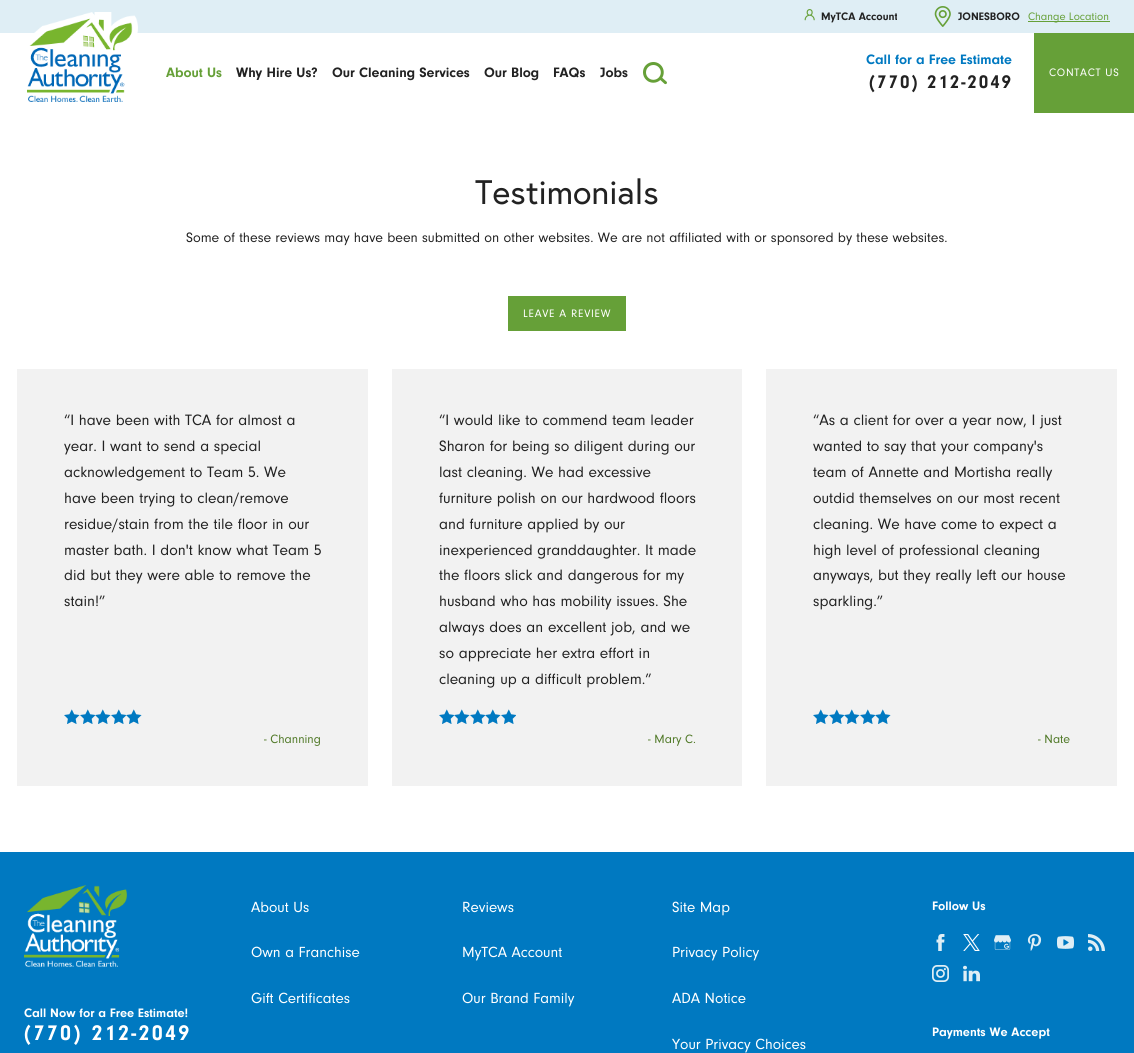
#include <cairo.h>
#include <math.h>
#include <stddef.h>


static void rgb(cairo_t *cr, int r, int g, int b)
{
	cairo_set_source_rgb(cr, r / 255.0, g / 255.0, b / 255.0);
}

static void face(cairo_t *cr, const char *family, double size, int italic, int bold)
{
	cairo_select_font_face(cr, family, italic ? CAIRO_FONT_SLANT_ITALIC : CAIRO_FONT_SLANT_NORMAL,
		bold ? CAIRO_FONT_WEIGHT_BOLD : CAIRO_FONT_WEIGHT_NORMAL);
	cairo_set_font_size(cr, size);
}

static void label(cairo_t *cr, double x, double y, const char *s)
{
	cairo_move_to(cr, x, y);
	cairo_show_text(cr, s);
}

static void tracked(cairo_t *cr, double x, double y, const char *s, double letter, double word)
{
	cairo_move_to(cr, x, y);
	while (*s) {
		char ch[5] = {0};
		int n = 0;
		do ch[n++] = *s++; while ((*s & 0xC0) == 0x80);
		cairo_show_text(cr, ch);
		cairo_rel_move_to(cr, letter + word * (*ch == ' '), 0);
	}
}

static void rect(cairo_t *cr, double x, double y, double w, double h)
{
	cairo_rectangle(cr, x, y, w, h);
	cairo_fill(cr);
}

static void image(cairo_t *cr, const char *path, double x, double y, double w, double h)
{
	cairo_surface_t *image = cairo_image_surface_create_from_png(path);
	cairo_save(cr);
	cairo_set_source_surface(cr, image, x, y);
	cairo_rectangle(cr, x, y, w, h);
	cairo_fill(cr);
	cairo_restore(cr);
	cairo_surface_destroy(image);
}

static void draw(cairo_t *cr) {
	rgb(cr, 255, 255, 255);
	cairo_paint(cr);
	rgb(cr, 223, 238, 245);
	rect(cr, 0, 0, 1134, 33);
	image(cr, "image0.png", 27, 12, 111, 90);
	image(cr, "image1.png", 804, 9, 11, 12);
	face(cr, "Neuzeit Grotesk", 11.25, 0, 1);
	rgb(cr, 34, 34, 34);
	label(cr, 821, 20, "MyTCA Account");
	image(cr, "image2.png", 934, 6, 17, 21);
	label(cr, 958, 20, "JONESBORO");
	rgb(cr, 102, 160, 56);
	rect(cr, 1028, 21, 82, 1);
	face(cr, "Neuzeit Grotesk", 11.25, 0, 0);
	label(cr, 1028, 20, "Change Location");
	face(cr, "Neuzeit Grotesk", 14.15, 0, 1);
	label(cr, 166, 77, "About Us");
	rgb(cr, 34, 34, 34);
	label(cr, 236, 77, "Why Hire Us?");
	label(cr, 332, 77, "Our Cleaning Services");
	label(cr, 484, 77, "Our Blog");
	label(cr, 553, 77, "FAQs");
	label(cr, 600, 77, "Jobs");
	image(cr, "image3.png", 643, 62, 24, 23);
	rgb(cr, 0, 121, 193);
	label(cr, 866, 64, "Call for a Free Estimate");
	face(cr, "Neuzeit Grotesk", 19, 0, 1);
	rgb(cr, 34, 34, 34);
	tracked(cr, 869, 88, "(770) 212-2049", 1.9, 0);
	rgb(cr, 102, 160, 56);
	rect(cr, 1034, 33, 100, 80);
	face(cr, "Neuzeit Grotesk", 11.25, 0, 0);
	rgb(cr, 255, 255, 255);
	tracked(cr, 1049, 76, "CONTACT US", 0.75, 0);
	face(cr, "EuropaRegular", 34, 0, 0);
	rgb(cr, 34, 34, 34);
	label(cr, 475, 204, "Testimonials");
	face(cr, "Neuzeit Grotesk", 14.15, 0, 0);
	label(cr, 186, 242, "Some of these reviews may have been submitted on other websites. We are not affiliated with or sponsored by these websites.");
	rgb(cr, 102, 160, 56);
	rect(cr, 508, 296, 118, 35);
	face(cr, "Neuzeit Grotesk", 11.25, 0, 0);
	rgb(cr, 255, 255, 255);
	tracked(cr, 523, 317, "LEAVE A REVIEW", 0.75, 0);
	rgb(cr, 242, 242, 242);
	rect(cr, 17, 369, 351, 417);
	face(cr, "Neuzeit Grotesk", 15.6, 0, 0);
	rgb(cr, 34, 34, 34);
	label(cr, 64, 425, "“I have been with TCA for almost a");
	label(cr, 64, 451, "year. I want to send a special");
	label(cr, 64, 477, "acknowledgement to Team 5. We");
	label(cr, 64, 503, "have been trying to clean/remove");
	label(cr, 64, 529, "residue/stain from the tile floor in our");
	label(cr, 64, 555, "master bath. I don't know what Team 5");
	label(cr, 64, 580, "did but they were able to remove the");
	label(cr, 64, 606, "stain!”");
	image(cr, "image4.png", 64, 709, 16, 15);
	image(cr, "image5.png", 80, 709, 15, 15);
	image(cr, "image4.png", 95, 709, 16, 15);
	image(cr, "image5.png", 111, 709, 15, 15);
	image(cr, "image4.png", 126, 709, 16, 15);
	face(cr, "Neuzeit Grotesk", 12.5, 0, 0);
	rgb(cr, 79, 120, 38);
	label(cr, 264, 743, "- Channing");
	rgb(cr, 242, 242, 242);
	rect(cr, 392, 369, 350, 417);
	face(cr, "Neuzeit Grotesk", 15.6, 0, 0);
	rgb(cr, 34, 34, 34);
	label(cr, 439, 425, "“I would like to commend team leader");
	label(cr, 439, 451, "Sharon for being so diligent during our");
	label(cr, 439, 477, "last cleaning. We had excessive");
	label(cr, 439, 503, "furniture polish on our hardwood floors");
	label(cr, 439, 529, "and furniture applied by our");
	label(cr, 439, 555, "inexperienced granddaughter. It made");
	label(cr, 439, 580, "the floors slick and dangerous for my");
	label(cr, 439, 606, "husband who has mobility issues. She");
	label(cr, 439, 632, "always does an excellent job, and we");
	label(cr, 439, 658, "so appreciate her extra effort in");
	label(cr, 439, 684, "cleaning up a difficult problem.”");
	image(cr, "image5.png", 439, 709, 15, 15);
	image(cr, "image4.png", 454, 709, 16, 15);
	image(cr, "image5.png", 470, 709, 15, 15);
	image(cr, "image4.png", 485, 709, 16, 15);
	image(cr, "image5.png", 501, 709, 15, 15);
	face(cr, "Neuzeit Grotesk", 12.5, 0, 0);
	rgb(cr, 79, 120, 38);
	label(cr, 648, 743, "- Mary C.");
	rgb(cr, 242, 242, 242);
	rect(cr, 766, 369, 351, 417);
	face(cr, "Neuzeit Grotesk", 15.6, 0, 0);
	rgb(cr, 34, 34, 34);
	label(cr, 813, 425, "“As a client for over a year now, I just");
	label(cr, 813, 451, "wanted to say that your company's");
	label(cr, 813, 477, "team of Annette and Mortisha really");
	label(cr, 813, 503, "outdid themselves on our most recent");
	label(cr, 813, 529, "cleaning. We have come to expect a");
	label(cr, 813, 555, "high level of professional cleaning");
	label(cr, 813, 580, "anyways, but they really left our house");
	label(cr, 813, 606, "sparkling.”");
	image(cr, "image4.png", 813, 709, 16, 15);
	image(cr, "image5.png", 829, 709, 15, 15);
	image(cr, "image4.png", 844, 709, 16, 15);
	image(cr, "image5.png", 860, 709, 15, 15);
	image(cr, "image4.png", 875, 709, 16, 15);
	face(cr, "Neuzeit Grotesk", 12.5, 0, 0);
	rgb(cr, 79, 120, 38);
	label(cr, 1038, 743, "- Nate");
	rgb(cr, 0, 121, 193);
	rect(cr, 0, 852, 1134, 201);
	image(cr, "image6.png", 24, 885, 103, 82);
	face(cr, "Neuzeit Grotesk", 12.75, 0, 1);
	rgb(cr, 255, 255, 255);
	label(cr, 24, 1017, "Call Now for a Free Estimate!");
	face(cr, "Neuzeit Grotesk", 22, 0, 1);
	tracked(cr, 24, 1040, "(770) 212-2049", 2.25, 0);
	face(cr, "Neuzeit Grotesk", 15.25, 0, 0);
	label(cr, 251, 912, "About Us");
	label(cr, 462, 912, "Reviews");
	label(cr, 251, 957, "Own a Franchise");
	label(cr, 462, 957, "MyTCA Account");
	label(cr, 251, 1003, "Gift Certificates");
	label(cr, 462, 1003, "Our Brand Family");
	label(cr, 672, 912, "Site Map");
	label(cr, 672, 957, "Privacy Policy");
	label(cr, 672, 1003, "ADA Notice");
	label(cr, 672, 1049, "Your Privacy Choices");
	face(cr, "Neuzeit Grotesk", 12.75, 0, 1);
	label(cr, 932, 910, "Follow Us");
	image(cr, "image7.png", 936, 934, 9, 17);
	image(cr, "image8.png", 963, 934, 17, 17);
	image(cr, "image9.png", 994, 935, 17, 15);
	image(cr, "image10.png", 1027, 934, 15, 17);
	image(cr, "image11.png", 1057, 936, 17, 13);
	image(cr, "image12.png", 1088, 934, 17, 17);
	image(cr, "image13.png", 932, 965, 17, 17);
	image(cr, "image14.png", 963, 965, 17, 17);
	label(cr, 932, 1036, "Payments We Accept");
}

int main(void) {
	cairo_surface_t *surface = cairo_image_surface_create(CAIRO_FORMAT_RGB24, 1134, 1053);
	cairo_t *cr = cairo_create(surface);
	cairo_font_options_t *options = cairo_font_options_create();
	cairo_font_options_set_hint_metrics(options, CAIRO_HINT_METRICS_OFF);
	cairo_font_options_set_hint_style(options, CAIRO_HINT_STYLE_NONE);
	cairo_set_font_options(cr, options);
	cairo_set_miter_limit(cr, 4);
	draw(cr);
	cairo_surface_write_to_png(surface, "render.png");
	cairo_font_options_destroy(options);
	cairo_destroy(cr);
	cairo_surface_destroy(surface);
	return 0;
}
